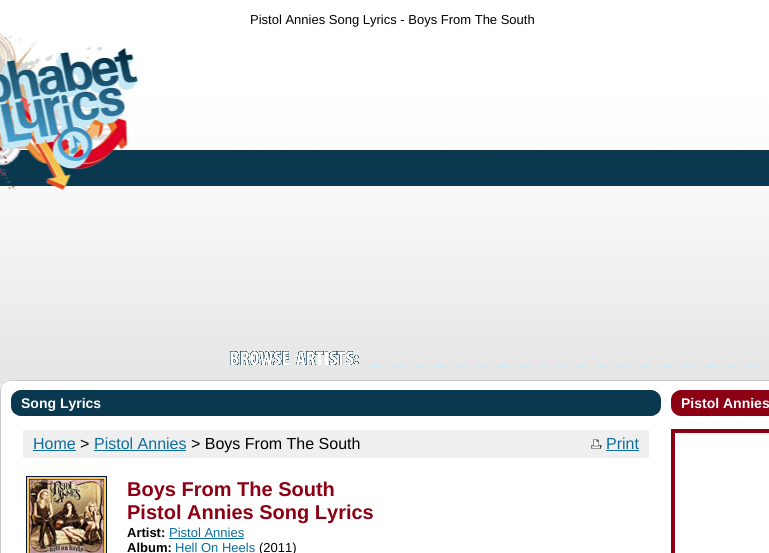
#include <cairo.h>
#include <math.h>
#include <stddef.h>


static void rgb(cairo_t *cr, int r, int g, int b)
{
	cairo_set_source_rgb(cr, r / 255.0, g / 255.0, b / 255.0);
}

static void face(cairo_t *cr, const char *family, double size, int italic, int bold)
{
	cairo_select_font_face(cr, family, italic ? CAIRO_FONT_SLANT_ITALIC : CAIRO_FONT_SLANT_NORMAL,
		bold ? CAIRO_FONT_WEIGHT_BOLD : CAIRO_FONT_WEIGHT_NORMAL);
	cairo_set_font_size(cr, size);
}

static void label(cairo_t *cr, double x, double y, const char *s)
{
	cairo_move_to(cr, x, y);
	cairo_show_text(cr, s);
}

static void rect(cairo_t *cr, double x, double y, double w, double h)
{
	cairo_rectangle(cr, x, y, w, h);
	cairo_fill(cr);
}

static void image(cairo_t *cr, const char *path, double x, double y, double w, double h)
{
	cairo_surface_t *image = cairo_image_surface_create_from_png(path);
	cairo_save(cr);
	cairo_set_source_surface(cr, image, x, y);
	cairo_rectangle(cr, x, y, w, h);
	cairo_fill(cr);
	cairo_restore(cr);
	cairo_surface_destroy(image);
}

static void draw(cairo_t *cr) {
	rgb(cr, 255, 255, 255);
	cairo_paint(cr);
	image(cr, "image0.png", 0, 0, 769, 385);
	image(cr, "image1.png", 0, 32, 769, 158);
	face(cr, "Liberation Sans", 13, 0, 0);
	rgb(cr, 0, 0, 0);
	label(cr, 250, 24, "Pistol Annies Song Lyrics - Boys From The South");
	image(cr, "image2.png", 230, 351, 129, 14);
	rgb(cr, 197, 233, 245);
	rect(cr, 372, 366, 9, 1);
	rect(cr, 393, 366, 10, 1);
	rect(cr, 415, 366, 9, 1);
	rect(cr, 436, 366, 10, 1);
	rect(cr, 458, 366, 8, 1);
	rect(cr, 478, 366, 8, 1);
	rect(cr, 498, 366, 10, 1);
	rect(cr, 520, 366, 10, 1);
	rect(cr, 542, 366, 3, 1);
	rect(cr, 557, 366, 8, 1);
	rect(cr, 577, 366, 9, 1);
	rect(cr, 598, 366, 8, 1);
	rect(cr, 618, 366, 11, 1);
	rect(cr, 641, 366, 9, 1);
	rect(cr, 662, 366, 10, 1);
	rect(cr, 684, 366, 9, 1);
	rect(cr, 705, 366, 10, 1);
	rect(cr, 727, 366, 9, 1);
	rect(cr, 748, 366, 9, 1);
	image(cr, "image3.png", 0, 380, 10, 10);
	rgb(cr, 255, 255, 255);
	rect(cr, 10, 381, 759, 4);
	rgb(cr, 204, 204, 204);
	rect(cr, 10, 380, 759, 1);
	rect(cr, 0, 390, 1, 163);
	rgb(cr, 9, 56, 79);
	rect(cr, 20, 390, 632, 26);
	image(cr, "image4.png", 11, 390, 9, 26);
	image(cr, "image5.png", 652, 390, 9, 26);
	face(cr, "Liberation Sans", 14, 0, 1);
	rgb(cr, 255, 255, 255);
	label(cr, 21, 408, "Song Lyrics");
	rgb(cr, 239, 239, 239);
	rect(cr, 23, 430, 626, 28);
	face(cr, "Liberation Sans", 16, 0, 0);
	rgb(cr, 11, 110, 158);
	label(cr, 33, 449, "Home");
	rect(cr, 33, 450, 43, 1);
	rgb(cr, 0, 0, 0);
	label(cr, 80, 449, ">");
	rgb(cr, 11, 110, 158);
	label(cr, 94, 449, "Pistol Annies");
	rect(cr, 94, 450, 92, 1);
	rgb(cr, 0, 0, 0);
	label(cr, 191, 449, "> Boys From The South");
	image(cr, "image6.png", 591, 439, 11, 10);
	rgb(cr, 11, 110, 158);
	label(cr, 606, 449, "Print");
	rect(cr, 606, 450, 33, 1);
	rgb(cr, 250, 201, 82);
	cairo_rectangle(cr, 26.5, 476.5, 80, 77);
	cairo_fill_preserve(cr);
	rgb(cr, 2, 26, 64);
	cairo_set_line_width(cr, 1);
	cairo_stroke(cr);
	image(cr, "image7.png", 29, 479, 75, 74);
	face(cr, "Liberation Sans", 20, 0, 1);
	rgb(cr, 139, 0, 19);
	label(cr, 127, 496, "Boys From The South");
	label(cr, 127, 519, "Pistol Annies Song Lyrics");
	face(cr, "Liberation Sans", 13, 0, 1);
	rgb(cr, 0, 0, 0);
	label(cr, 127, 537, "Artist:");
	face(cr, "Liberation Sans", 13, 0, 0);
	rgb(cr, 11, 110, 158);
	label(cr, 169, 537, "Pistol Annies");
	rect(cr, 169, 538, 75, 1);
	face(cr, "Liberation Sans", 13, 0, 1);
	rgb(cr, 0, 0, 0);
	label(cr, 127, 552, "Album:");
	face(cr, "Liberation Sans", 13, 0, 0);
	rgb(cr, 11, 110, 158);
	label(cr, 175, 552, "Hell On Heels");
	rgb(cr, 0, 0, 0);
	label(cr, 259, 552, "(2011)");
	rgb(cr, 139, 0, 19);
	rect(cr, 680, 390, 89, 26);
	image(cr, "image8.png", 671, 390, 9, 26);
	face(cr, "Liberation Sans", 14, 0, 1);
	rgb(cr, 255, 255, 255);
	label(cr, 681, 408, "Pistol Annies");
	cairo_rectangle(cr, 673, 431, 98, 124);
	rgb(cr, 139, 0, 19);
	cairo_set_line_width(cr, 4);
	cairo_stroke(cr);
}

int main(void) {
	cairo_surface_t *surface = cairo_image_surface_create(CAIRO_FORMAT_RGB24, 769, 553);
	cairo_t *cr = cairo_create(surface);
	cairo_font_options_t *options = cairo_font_options_create();
	cairo_font_options_set_hint_metrics(options, CAIRO_HINT_METRICS_OFF);
	cairo_font_options_set_hint_style(options, CAIRO_HINT_STYLE_NONE);
	cairo_set_font_options(cr, options);
	cairo_set_miter_limit(cr, 4);
	draw(cr);
	cairo_surface_write_to_png(surface, "render.png");
	cairo_font_options_destroy(options);
	cairo_destroy(cr);
	cairo_surface_destroy(surface);
	return 0;
}
